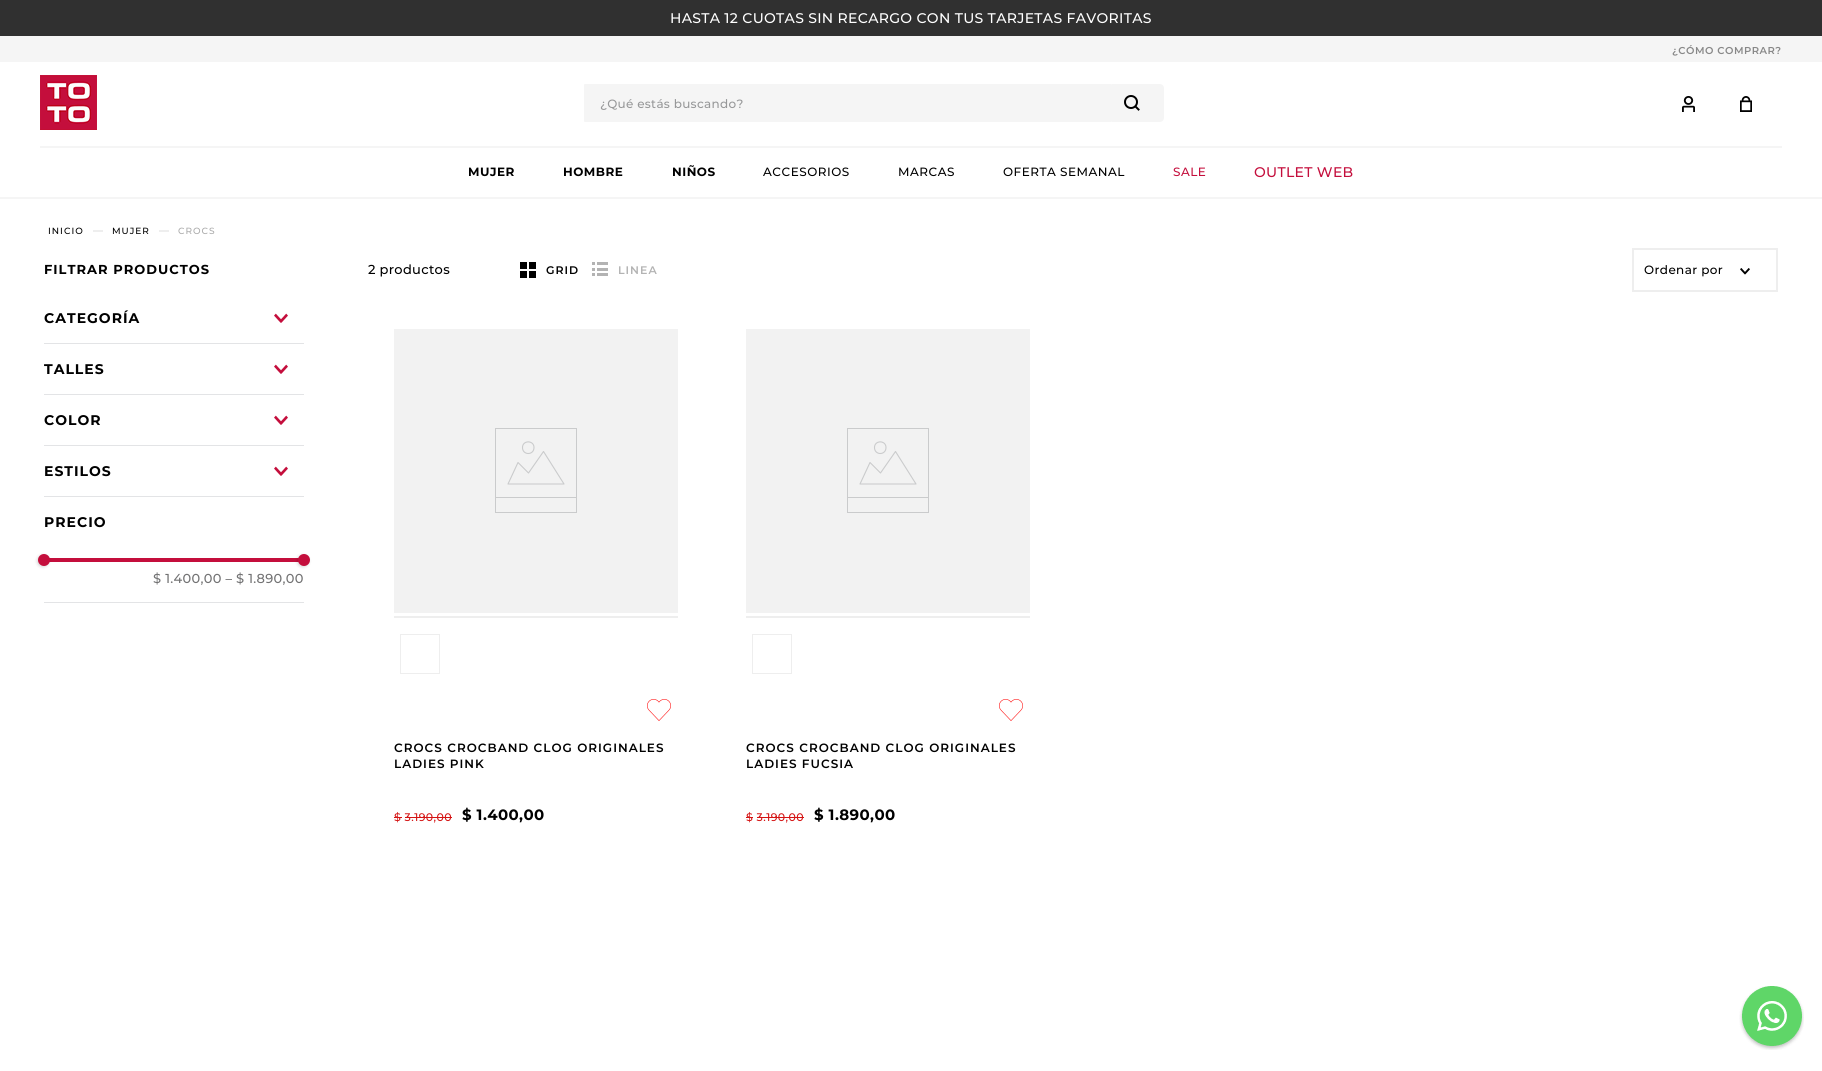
#include <cairo.h>
#include <math.h>
#include <stddef.h>


static void rgb(cairo_t *cr, int r, int g, int b)
{
	cairo_set_source_rgb(cr, r / 255.0, g / 255.0, b / 255.0);
}

static void face(cairo_t *cr, const char *family, double size, int italic, int bold)
{
	cairo_select_font_face(cr, family, italic ? CAIRO_FONT_SLANT_ITALIC : CAIRO_FONT_SLANT_NORMAL,
		bold ? CAIRO_FONT_WEIGHT_BOLD : CAIRO_FONT_WEIGHT_NORMAL);
	cairo_set_font_size(cr, size);
}

static void tracked(cairo_t *cr, double x, double y, const char *s, double letter, double word)
{
	cairo_move_to(cr, x, y);
	while (*s) {
		char ch[5] = {0};
		int n = 0;
		do ch[n++] = *s++; while ((*s & 0xC0) == 0x80);
		cairo_show_text(cr, ch);
		cairo_rel_move_to(cr, letter + word * (*ch == ' '), 0);
	}
}

static void rect(cairo_t *cr, double x, double y, double w, double h)
{
	cairo_rectangle(cr, x, y, w, h);
	cairo_fill(cr);
}

static void rrect(cairo_t *cr, double x, double y, double w, double h, double r)
{
	cairo_new_sub_path(cr);
	cairo_arc(cr, x + w - r, y + h - r, r, 0, M_PI / 2);
	cairo_arc(cr, x + r, y + h - r, r, M_PI / 2, M_PI);
	cairo_arc(cr, x + r, y + r, r, M_PI, 1.5 * M_PI);
	cairo_arc(cr, x + w - r, y + r, r, 1.5 * M_PI, 2 * M_PI);
	cairo_close_path(cr);
}

static void soft_shadow(cairo_t *cr, double x, double y, double w, double h, double r, double blur, double alpha)
{
	cairo_push_group_with_content(cr, CAIRO_CONTENT_ALPHA);
	cairo_set_operator(cr, CAIRO_OPERATOR_SOURCE);
	for (int i = 15; i >= -15 && fmin(w, h) + blur * i / 3 > 0; i -= 2) {
		double e = blur * i / 6;
		cairo_set_source_rgba(cr, 0, 0, 0, alpha * erfc((i - 1) / 8.5) / 2);
		rrect(cr, x - e, y - e, w + 2 * e, h + 2 * e, fmax(0, fmin(r + e + blur * .6, fmin(w, h) / 2 + e)));
		cairo_fill(cr);
	}
	cairo_pattern_t *soft = cairo_pop_group(cr);
	cairo_mask(cr, soft);
	cairo_pattern_destroy(soft);
}

static void image(cairo_t *cr, const char *path, double x, double y, double w, double h)
{
	cairo_surface_t *image = cairo_image_surface_create_from_png(path);
	cairo_save(cr);
	cairo_set_source_surface(cr, image, x, y);
	cairo_rectangle(cr, x, y, w, h);
	cairo_fill(cr);
	cairo_restore(cr);
	cairo_surface_destroy(image);
}

static void draw(cairo_t *cr) {
	rgb(cr, 255, 255, 255);
	cairo_paint(cr);
	rgb(cr, 48, 48, 48);
	rect(cr, 0, 0, 1822, 36);
	face(cr, "Montserrat Medium", 14, 0, 0);
	rgb(cr, 255, 255, 255);
	tracked(cr, 670, 23, "HASTA 12 CUOTAS SIN RECARGO CON TUS TARJETAS FAVORITAS", 0.3, 0);
	rgb(cr, 245, 245, 245);
	rect(cr, 0, 36, 1822, 26);
	face(cr, "Montserrat SemiBold", 10, 0, 0);
	rgb(cr, 136, 136, 136);
	tracked(cr, 1672, 54, "¿CÓMO COMPRAR?", 0.5, 0);
	image(cr, "image0.png", 40, 75, 57, 55);
	rgb(cr, 245, 245, 245);
	rrect(cr, 584, 84, 528, 38, 1);
	cairo_fill(cr);
	face(cr, "Montserrat Medium", 12, 0, 0);
	rgb(cr, 151, 152, 153);
	tracked(cr, 600, 108, "¿Qué estás buscando?", 0.3, 0);
	rgb(cr, 245, 245, 245);
	cairo_new_path(cr);
	cairo_move_to(cr, 1112, 84);
	cairo_line_to(cr, 1160, 84);
	cairo_curve_to(cr, 1162, 84, 1164, 86, 1164, 88);
	cairo_line_to(cr, 1164, 118);
	cairo_curve_to(cr, 1164, 120, 1162, 122, 1160, 122);
	cairo_line_to(cr, 1112, 122);
	cairo_close_path(cr);
	cairo_fill(cr);
	image(cr, "image1.png", 1124, 95, 16, 16);
	image(cr, "image2.png", 1682, 96, 13, 16);
	image(cr, "image3.png", 1740, 96, 12, 16);
	rect(cr, 0, 197, 1822, 2);
	rect(cr, 40, 146, 1742, 2);
	face(cr, "Montserrat", 12, 0, 1);
	rgb(cr, 0, 0, 0);
	tracked(cr, 468, 176, "MUJER", 0.5, 0);
	tracked(cr, 563, 176, "HOMBRE", 0.5, 0);
	tracked(cr, 672, 176, "NIÑOS", 0.5, 0);
	face(cr, "Montserrat Medium", 12, 0, 0);
	tracked(cr, 763, 176, "ACCESORIOS", 0.5, 0);
	tracked(cr, 898, 176, "MARCAS", 0.5, 0);
	tracked(cr, 1003, 176, "OFERTA SEMANAL", 0.5, 0);
	rgb(cr, 196, 14, 60);
	tracked(cr, 1173, 176, "SALE", 0.5, 0);
	face(cr, "Montserrat Medium", 14, 0, 0);
	tracked(cr, 1254, 177, "OUTLET WEB", 0.3, 0);
	face(cr, "Montserrat Medium", 9, 0, 0);
	rgb(cr, 0, 0, 0);
	tracked(cr, 48, 234, "INICIO", 1, 0);
	rgb(cr, 238, 238, 238);
	rect(cr, 93, 230, 10, 2);
	rgb(cr, 0, 0, 0);
	tracked(cr, 112, 234, "MUJER", 1, 0);
	rgb(cr, 238, 238, 238);
	rect(cr, 159, 230, 10, 2);
	rgb(cr, 170, 170, 170);
	tracked(cr, 178, 234, "CROCS", 1, 0);
	face(cr, "Montserrat", 13, 0, 1);
	rgb(cr, 0, 0, 0);
	tracked(cr, 44, 274, "FILTRAR PRODUCTOS", 1, 0);
	rgb(cr, 227, 228, 230);
	rect(cr, 44, 343, 260, 1);
	face(cr, "Montserrat", 14, 0, 1);
	rgb(cr, 0, 0, 0);
	tracked(cr, 44, 323, "CATEGORÍA", 1, 0);
	image(cr, "image4.png", 274, 313, 14, 10);
	rgb(cr, 227, 228, 230);
	rect(cr, 44, 394, 260, 1);
	rgb(cr, 0, 0, 0);
	tracked(cr, 44, 374, "TALLES", 1, 0);
	image(cr, "image4.png", 274, 364, 14, 10);
	rgb(cr, 227, 228, 230);
	rect(cr, 44, 445, 260, 1);
	rgb(cr, 0, 0, 0);
	tracked(cr, 44, 425, "COLOR", 1, 0);
	image(cr, "image4.png", 274, 415, 14, 10);
	rgb(cr, 227, 228, 230);
	rect(cr, 44, 496, 260, 1);
	rgb(cr, 0, 0, 0);
	tracked(cr, 44, 476, "ESTILOS", 1, 0);
	image(cr, "image4.png", 274, 466, 14, 10);
	rgb(cr, 227, 228, 230);
	rect(cr, 44, 602, 260, 1);
	rgb(cr, 0, 0, 0);
	tracked(cr, 44, 527, "PRECIO", 1, 0);
	rgb(cr, 196, 14, 60);
	rect(cr, 44, 558, 260, 4);
	rgb(cr, 0, 0, 0);
	soft_shadow(cr, 37, 555, 12, 12, 6, 1.5, 0.15);
	rgb(cr, 196, 14, 60);
	cairo_arc(cr, 44, 560, 6, 0, 2 * M_PI);
	cairo_fill(cr);
	rgb(cr, 0, 0, 0);
	soft_shadow(cr, 297, 555, 12, 12, 6, 1.5, 0.15);
	rgb(cr, 196, 14, 60);
	cairo_arc(cr, 304, 560, 6, 0, 2 * M_PI);
	cairo_fill(cr);
	face(cr, "Montserrat Medium", 13, 0, 0);
	rgb(cr, 114, 114, 115);
	tracked(cr, 153, 583, "$ 1.400,00 – $ 1.890,00", 0.3, 0);
	rgb(cr, 0, 0, 0);
	tracked(cr, 368, 274, "2 productos", 0.3, 0);
	image(cr, "image5.png", 520, 262, 16, 16);
	face(cr, "Montserrat SemiBold", 11, 0, 0);
	tracked(cr, 546, 274, "GRID", 1, 0);
	image(cr, "image6.png", 592, 262, 16, 14);
	rgb(cr, 179, 179, 179);
	tracked(cr, 618, 274, "LINEA", 1, 0);
	cairo_rectangle(cr, 1633, 249, 144, 42);
	rgb(cr, 238, 238, 238);
	cairo_stroke(cr);
	face(cr, "Montserrat Medium", 12, 0, 0);
	rgb(cr, 0, 0, 0);
	tracked(cr, 1644, 274, "Ordenar por", 0.4, 0);
	image(cr, "image7.png", 1740, 268, 10, 7);
	rgb(cr, 242, 242, 242);
	rect(cr, 394, 329, 284, 284);
	cairo_rectangle(cr, 495.5, 428.5, 81, 84);
	rgb(cr, 202, 203, 204);
	cairo_set_line_width(cr, 1);
	cairo_stroke(cr);
	cairo_new_path(cr);
	cairo_move_to(cr, 508, 484);
	cairo_line_to(cr, 518, 462.5);
	cairo_line_to(cr, 528.5, 473);
	cairo_line_to(cr, 543.5, 451.5);
	cairo_line_to(cr, 564, 484);
	cairo_close_path(cr);
	cairo_set_line_width(cr, 1.1);
	cairo_set_line_cap(cr, CAIRO_LINE_CAP_ROUND);
	cairo_set_line_join(cr, CAIRO_LINE_JOIN_ROUND);
	cairo_stroke(cr);
	cairo_new_path(cr);
	cairo_move_to(cr, 534, 447.5);
	cairo_curve_to(cr, 534, 455.5, 522.5, 455.5, 522.5, 447.5);
	cairo_curve_to(cr, 522.5, 440, 534, 440, 534, 447.5);
	cairo_close_path(cr);
	cairo_set_line_cap(cr, CAIRO_LINE_CAP_BUTT);
	cairo_set_line_join(cr, CAIRO_LINE_JOIN_MITER);
	cairo_stroke(cr);
	rect(cr, 496, 497, 80, 1);
	rgb(cr, 238, 238, 238);
	rect(cr, 394, 616, 284, 2);
	cairo_rectangle(cr, 400.5, 634.5, 39, 39);
	cairo_set_line_width(cr, 1);
	cairo_stroke(cr);
	image(cr, "image8.png", 647, 699, 24, 22);
	face(cr, "Montserrat SemiBold", 12, 0, 0);
	rgb(cr, 0, 0, 0);
	tracked(cr, 394, 752, "CROCS CROCBAND CLOG ORIGINALES", 1, 0);
	tracked(cr, 394, 768, "LADIES PINK", 1, 0);
	face(cr, "Montserrat Medium", 11, 0, 0);
	rgb(cr, 212, 18, 18);
	tracked(cr, 394, 821, "$ 3.190,00", 0.4, 0);
	rect(cr, 394, 817, 8, 1);
	rect(cr, 405, 817, 47, 1);
	face(cr, "Montserrat", 15, 0, 1);
	rgb(cr, 0, 0, 0);
	tracked(cr, 462, 820, "$ 1.400,00", 0.4, 0);
	rgb(cr, 242, 242, 242);
	rect(cr, 746, 329, 284, 284);
	cairo_rectangle(cr, 847.5, 428.5, 81, 84);
	rgb(cr, 202, 203, 204);
	cairo_stroke(cr);
	cairo_new_path(cr);
	cairo_move_to(cr, 860, 484);
	cairo_line_to(cr, 870, 462.5);
	cairo_line_to(cr, 880.5, 473);
	cairo_line_to(cr, 895.5, 451.5);
	cairo_line_to(cr, 916, 484);
	cairo_close_path(cr);
	cairo_set_line_width(cr, 1.1);
	cairo_set_line_cap(cr, CAIRO_LINE_CAP_ROUND);
	cairo_set_line_join(cr, CAIRO_LINE_JOIN_ROUND);
	cairo_stroke(cr);
	cairo_new_path(cr);
	cairo_move_to(cr, 886, 447.5);
	cairo_curve_to(cr, 886, 455.5, 874.5, 455.5, 874.5, 447.5);
	cairo_curve_to(cr, 874.5, 440, 886, 440, 886, 447.5);
	cairo_close_path(cr);
	cairo_set_line_cap(cr, CAIRO_LINE_CAP_BUTT);
	cairo_set_line_join(cr, CAIRO_LINE_JOIN_MITER);
	cairo_stroke(cr);
	rect(cr, 848, 497, 80, 1);
	rgb(cr, 238, 238, 238);
	rect(cr, 746, 616, 284, 2);
	cairo_rectangle(cr, 752.5, 634.5, 39, 39);
	cairo_set_line_width(cr, 1);
	cairo_stroke(cr);
	image(cr, "image8.png", 999, 699, 24, 22);
	face(cr, "Montserrat SemiBold", 12, 0, 0);
	rgb(cr, 0, 0, 0);
	tracked(cr, 746, 752, "CROCS CROCBAND CLOG ORIGINALES", 1, 0);
	tracked(cr, 746, 768, "LADIES FUCSIA", 1, 0);
	face(cr, "Montserrat Medium", 11, 0, 0);
	rgb(cr, 212, 18, 18);
	tracked(cr, 746, 821, "$ 3.190,00", 0.4, 0);
	rect(cr, 746, 817, 7, 1);
	rect(cr, 757, 817, 47, 1);
	face(cr, "Montserrat", 15, 0, 1);
	rgb(cr, 0, 0, 0);
	tracked(cr, 814, 820, "$ 1.890,00", 0.4, 0);
	image(cr, "image9.png", 1739, 986, 65, 64);
}

int main(void) {
	cairo_surface_t *surface = cairo_image_surface_create(CAIRO_FORMAT_RGB24, 1822, 1071);
	cairo_t *cr = cairo_create(surface);
	cairo_font_options_t *options = cairo_font_options_create();
	cairo_font_options_set_hint_metrics(options, CAIRO_HINT_METRICS_OFF);
	cairo_font_options_set_hint_style(options, CAIRO_HINT_STYLE_NONE);
	cairo_set_font_options(cr, options);
	cairo_set_miter_limit(cr, 4);
	draw(cr);
	cairo_surface_write_to_png(surface, "render.png");
	cairo_font_options_destroy(options);
	cairo_destroy(cr);
	cairo_surface_destroy(surface);
	return 0;
}
